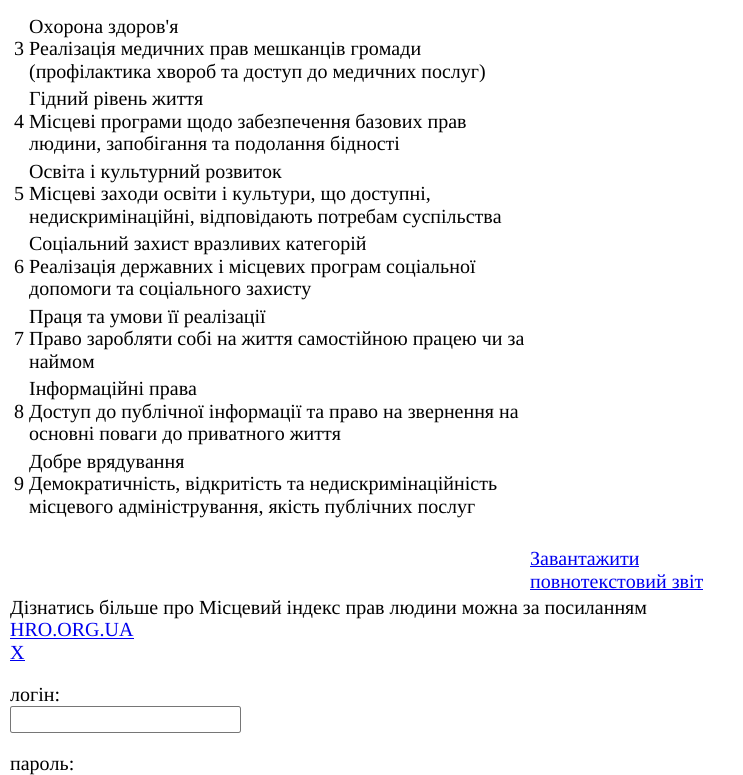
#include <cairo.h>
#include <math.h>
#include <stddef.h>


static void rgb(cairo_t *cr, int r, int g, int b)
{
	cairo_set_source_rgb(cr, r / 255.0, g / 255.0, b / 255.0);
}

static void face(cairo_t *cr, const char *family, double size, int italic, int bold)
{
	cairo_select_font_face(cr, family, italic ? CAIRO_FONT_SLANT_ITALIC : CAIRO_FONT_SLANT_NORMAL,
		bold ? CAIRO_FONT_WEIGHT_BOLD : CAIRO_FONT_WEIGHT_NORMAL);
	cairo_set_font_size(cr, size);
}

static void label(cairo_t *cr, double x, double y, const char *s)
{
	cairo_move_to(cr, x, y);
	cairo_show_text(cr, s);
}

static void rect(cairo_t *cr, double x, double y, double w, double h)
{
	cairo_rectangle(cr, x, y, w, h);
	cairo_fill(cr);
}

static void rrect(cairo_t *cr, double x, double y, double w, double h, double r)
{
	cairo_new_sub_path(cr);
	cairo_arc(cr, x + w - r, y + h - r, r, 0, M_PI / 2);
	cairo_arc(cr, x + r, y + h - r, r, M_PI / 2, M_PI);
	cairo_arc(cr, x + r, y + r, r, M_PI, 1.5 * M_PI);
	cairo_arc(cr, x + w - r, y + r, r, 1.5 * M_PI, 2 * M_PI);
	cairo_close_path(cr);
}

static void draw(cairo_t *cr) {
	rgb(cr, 255, 255, 255);
	cairo_paint(cr);
	face(cr, "Liberation Serif", 20, 0, 0);
	rgb(cr, 0, 0, 0);
	label(cr, 29, 33, "Охорона здоров'я");
	label(cr, 29, 78, "(профілактика хвороб та доступ до медичних послуг)");
	label(cr, 14, 55, "3 Реалізація медичних прав мешканців громади");
	label(cr, 29, 105, "Гідний рівень життя");
	label(cr, 29, 150, "людини, запобігання та подолання бідності");
	label(cr, 14, 128, "4 Місцеві програми щодо забезпечення базових прав");
	label(cr, 29, 178, "Освіта і культурний розвиток");
	label(cr, 29, 223, "недискримінаційні, відповідають потребам суспільства");
	label(cr, 14, 200, "5 Місцеві заходи освіти і культури, що доступні,");
	label(cr, 29, 250, "Соціальний захист вразливих категорій");
	label(cr, 29, 295, "допомоги та соціального захисту");
	label(cr, 14, 273, "6 Реалізація державних і місцевих програм соціальної");
	label(cr, 29, 323, "Праця та умови її реалізації");
	label(cr, 29, 368, "наймом");
	label(cr, 14, 345, "7 Право заробляти собі на життя самостійною працею чи за");
	label(cr, 29, 395, "Інформаційні права");
	label(cr, 29, 440, "основні поваги до приватного життя");
	label(cr, 14, 418, "8 Доступ до публічної інформації та право на звернення на");
	label(cr, 29, 468, "Добре врядування");
	label(cr, 29, 513, "місцевого адміністрування, якість публічних послуг");
	label(cr, 14, 490, "9 Демократичність, відкритість та недискримінаційність");
	rgb(cr, 0, 0, 238);
	label(cr, 530, 565, "Завантажити");
	rect(cr, 530, 566, 109, 1);
	label(cr, 530, 588, "повнотекстовий звіт");
	rect(cr, 530, 589, 173, 1);
	rgb(cr, 0, 0, 0);
	label(cr, 10, 614, "Дізнатись більше про Місцевий індекс прав людини можна за посиланням");
	rgb(cr, 0, 0, 238);
	label(cr, 10, 636, "HRO.ORG.UA");
	rect(cr, 10, 638, 124, 1);
	label(cr, 10, 659, "X");
	rect(cr, 10, 660, 15, 1);
	rgb(cr, 0, 0, 0);
	label(cr, 10, 701, "логін:");
	rrect(cr, 10.5, 706.5, 230, 26, 2);
	rgb(cr, 118, 118, 118);
	cairo_set_line_width(cr, 1);
	cairo_stroke(cr);
	rgb(cr, 0, 0, 0);
	label(cr, 10, 770, "пароль:");
}

int main(void) {
	cairo_surface_t *surface = cairo_image_surface_create(CAIRO_FORMAT_RGB24, 743, 775);
	cairo_t *cr = cairo_create(surface);
	cairo_font_options_t *options = cairo_font_options_create();
	cairo_font_options_set_hint_metrics(options, CAIRO_HINT_METRICS_OFF);
	cairo_font_options_set_hint_style(options, CAIRO_HINT_STYLE_NONE);
	cairo_set_font_options(cr, options);
	cairo_set_miter_limit(cr, 4);
	draw(cr);
	cairo_surface_write_to_png(surface, "render.png");
	cairo_font_options_destroy(options);
	cairo_destroy(cr);
	cairo_surface_destroy(surface);
	return 0;
}
